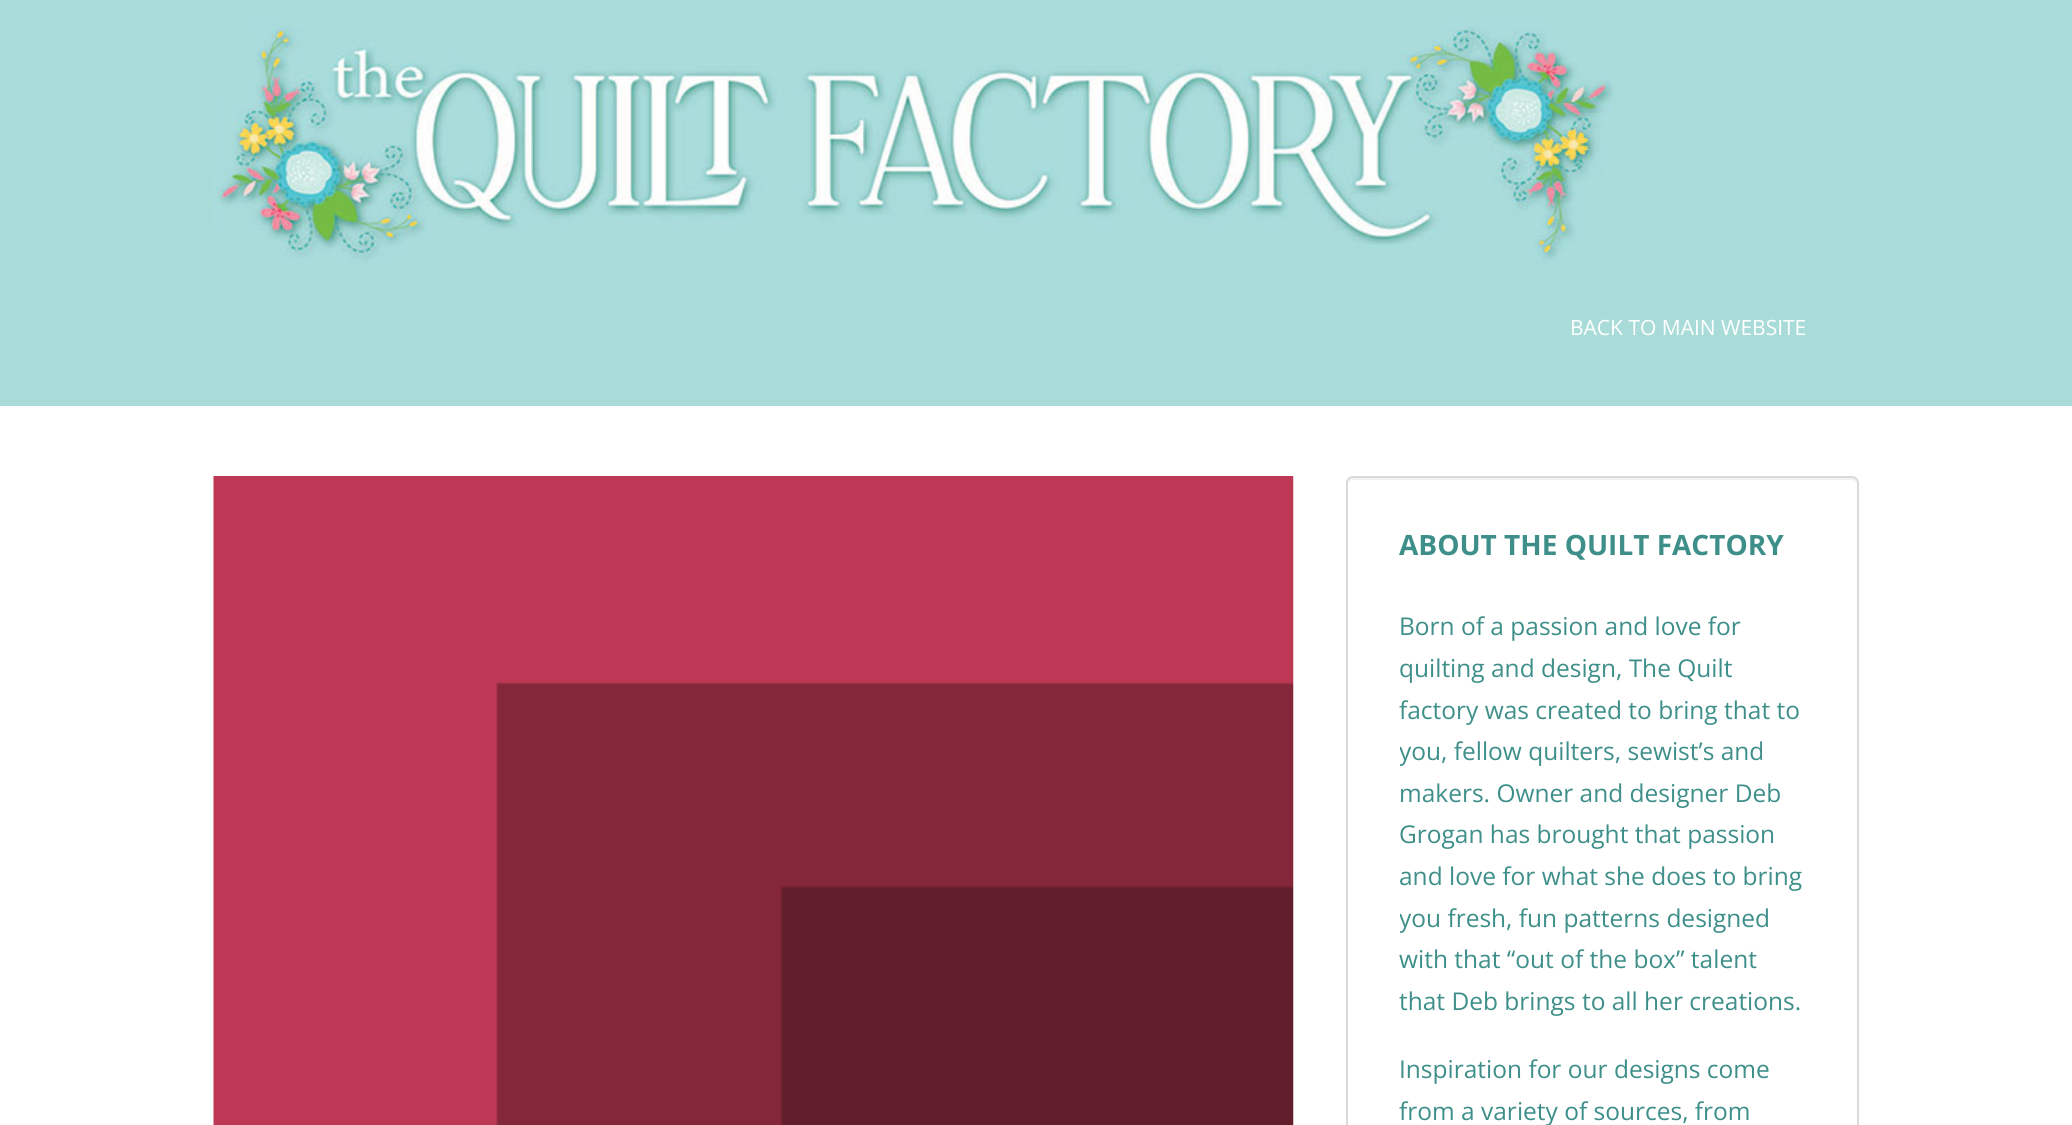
#include <cairo.h>
#include <math.h>
#include <stddef.h>


static void rgb(cairo_t *cr, int r, int g, int b)
{
	cairo_set_source_rgb(cr, r / 255.0, g / 255.0, b / 255.0);
}

static void face(cairo_t *cr, const char *family, double size, int italic, int bold)
{
	cairo_select_font_face(cr, family, italic ? CAIRO_FONT_SLANT_ITALIC : CAIRO_FONT_SLANT_NORMAL,
		bold ? CAIRO_FONT_WEIGHT_BOLD : CAIRO_FONT_WEIGHT_NORMAL);
	cairo_set_font_size(cr, size);
}

static void label(cairo_t *cr, double x, double y, const char *s)
{
	cairo_move_to(cr, x, y);
	cairo_show_text(cr, s);
}

static void rect(cairo_t *cr, double x, double y, double w, double h)
{
	cairo_rectangle(cr, x, y, w, h);
	cairo_fill(cr);
}

static void rrect(cairo_t *cr, double x, double y, double w, double h, double r)
{
	cairo_new_sub_path(cr);
	cairo_arc(cr, x + w - r, y + h - r, r, 0, M_PI / 2);
	cairo_arc(cr, x + r, y + h - r, r, M_PI / 2, M_PI);
	cairo_arc(cr, x + r, y + r, r, M_PI, 1.5 * M_PI);
	cairo_arc(cr, x + w - r, y + r, r, 1.5 * M_PI, 2 * M_PI);
	cairo_close_path(cr);
}

static void image(cairo_t *cr, const char *path, double x, double y, double w, double h)
{
	cairo_surface_t *image = cairo_image_surface_create_from_png(path);
	cairo_save(cr);
	cairo_set_source_surface(cr, image, x, y);
	cairo_rectangle(cr, x, y, w, h);
	cairo_fill(cr);
	cairo_restore(cr);
	cairo_surface_destroy(image);
}

static void draw(cairo_t *cr) {
	rgb(cr, 255, 255, 255);
	cairo_paint(cr);
	rgb(cr, 169, 220, 216);
	rect(cr, 0, 0, 2072, 406);
	image(cr, "image0.png", 213, 18, 1401, 245);
	face(cr, "Open Sans", 21, 0, 0);
	rgb(cr, 255, 255, 255);
	label(cr, 1570, 335, "BACK TO MAIN WEBSITE");
	image(cr, "image1.png", 213, 476, 1081, 649);
	rgb(cr, 242, 242, 242);
	cairo_new_path(cr);
	cairo_move_to(cr, 1353, 480);
	cairo_line_to(cr, 1852, 480);
	cairo_curve_to(cr, 1854, 480, 1857, 482, 1857, 485);
	cairo_line_to(cr, 1857, 483);
	cairo_curve_to(cr, 1857, 480, 1855, 478, 1852, 478);
	cairo_line_to(cr, 1353, 478);
	cairo_curve_to(cr, 1350, 478, 1348, 480, 1348, 483);
	cairo_line_to(cr, 1348, 485);
	cairo_curve_to(cr, 1348, 482, 1350, 480, 1353, 480);
	cairo_close_path(cr);
	cairo_fill(cr);
	rrect(cr, 1347, 477, 511, 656, 6);
	rgb(cr, 218, 218, 218);
	cairo_stroke(cr);
	face(cr, "Open Sans", 28, 0, 1);
	rgb(cr, 62, 143, 137);
	label(cr, 1399, 555, "ABOUT THE QUILT FACTORY");
	face(cr, "Open Sans", 24.5, 0, 0);
	label(cr, 1399, 635, "Born of a passion and love for");
	label(cr, 1399, 677, "quilting and design, The Quilt");
	label(cr, 1399, 719, "factory was created to bring that to");
	cairo_save(cr);
	cairo_rectangle(cr, 1400, 530, 404, 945);
	cairo_clip(cr);
	label(cr, 1399, 760, "you, fellow quilters, sewist’s and");
	cairo_restore(cr);
	label(cr, 1399, 802, "makers. Owner and designer Deb");
	label(cr, 1399, 843, "Grogan has brought that passion");
	label(cr, 1399, 885, "and love for what she does to bring");
	cairo_save(cr);
	cairo_rectangle(cr, 1400, 530, 404, 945);
	cairo_clip(cr);
	label(cr, 1399, 927, "you fresh, fun patterns designed");
	cairo_restore(cr);
	label(cr, 1399, 968, "with that “out of the box” talent");
	label(cr, 1399, 1010, "that Deb brings to all her creations.");
	label(cr, 1399, 1078, "Inspiration for our designs come");
	label(cr, 1399, 1120, "from a variety of sources, from");
}

int main(void) {
	cairo_surface_t *surface = cairo_image_surface_create(CAIRO_FORMAT_RGB24, 2072, 1125);
	cairo_t *cr = cairo_create(surface);
	cairo_font_options_t *options = cairo_font_options_create();
	cairo_font_options_set_hint_metrics(options, CAIRO_HINT_METRICS_OFF);
	cairo_font_options_set_hint_style(options, CAIRO_HINT_STYLE_NONE);
	cairo_set_font_options(cr, options);
	cairo_set_miter_limit(cr, 4);
	draw(cr);
	cairo_surface_write_to_png(surface, "render.png");
	cairo_font_options_destroy(options);
	cairo_destroy(cr);
	cairo_surface_destroy(surface);
	return 0;
}
